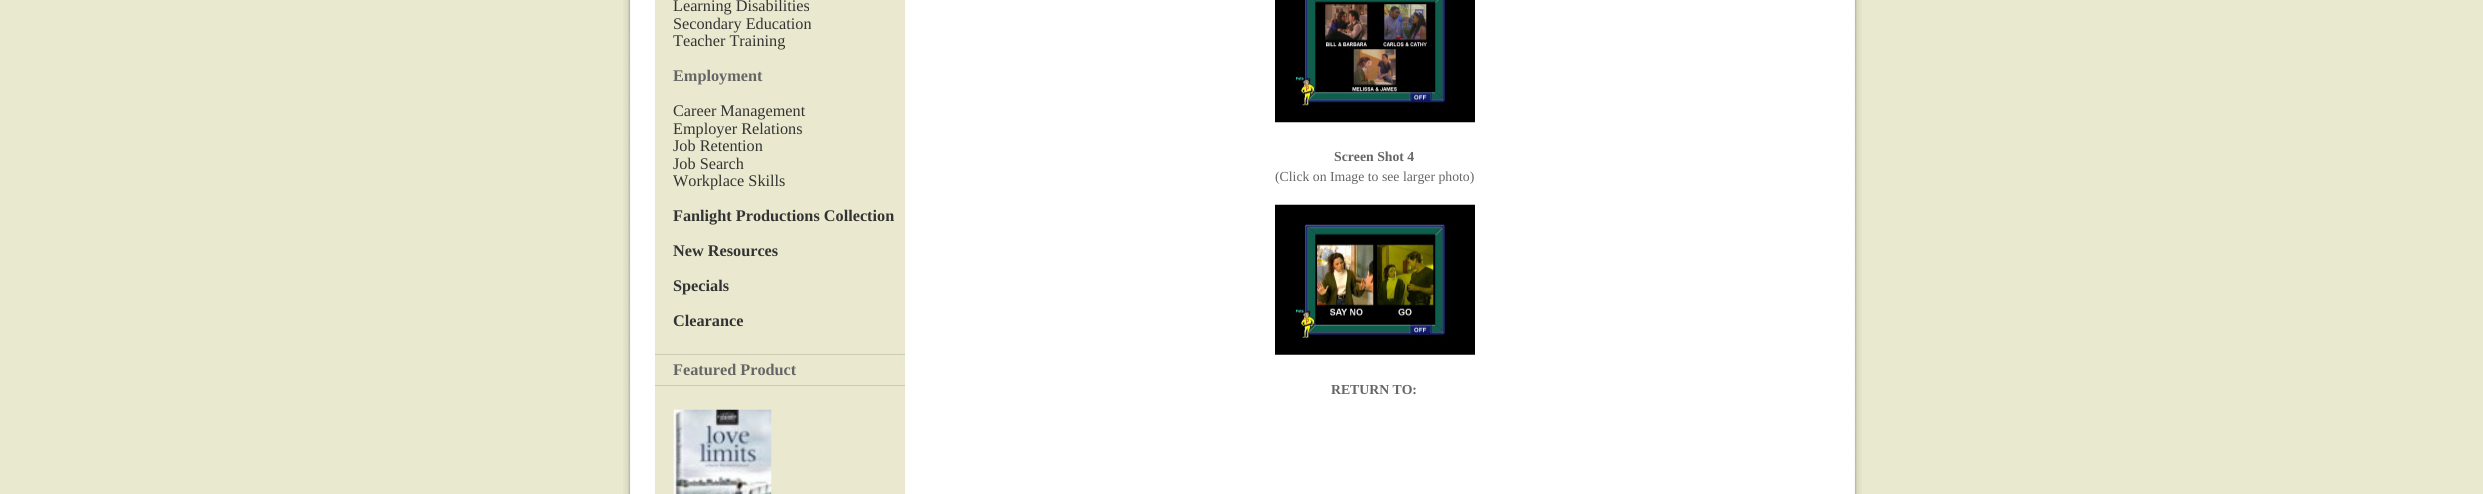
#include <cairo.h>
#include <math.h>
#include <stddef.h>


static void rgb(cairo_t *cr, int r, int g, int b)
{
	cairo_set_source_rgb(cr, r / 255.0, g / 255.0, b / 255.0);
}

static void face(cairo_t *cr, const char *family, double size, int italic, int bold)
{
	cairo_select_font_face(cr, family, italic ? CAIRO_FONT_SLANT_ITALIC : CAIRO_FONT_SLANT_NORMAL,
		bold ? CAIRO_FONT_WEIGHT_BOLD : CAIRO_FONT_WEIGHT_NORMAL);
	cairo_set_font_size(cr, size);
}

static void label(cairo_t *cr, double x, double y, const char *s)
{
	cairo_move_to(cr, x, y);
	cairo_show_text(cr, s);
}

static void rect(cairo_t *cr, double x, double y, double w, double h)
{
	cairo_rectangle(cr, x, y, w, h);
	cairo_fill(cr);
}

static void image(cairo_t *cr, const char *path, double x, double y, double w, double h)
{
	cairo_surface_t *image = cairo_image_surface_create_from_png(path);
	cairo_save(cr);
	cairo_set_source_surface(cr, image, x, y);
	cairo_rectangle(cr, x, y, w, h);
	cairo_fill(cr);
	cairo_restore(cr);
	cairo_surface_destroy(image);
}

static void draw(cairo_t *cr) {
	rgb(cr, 233, 233, 207);
	cairo_paint(cr);
	image(cr, "image0.png", 623, 0, 1239, 494);
	rgb(cr, 184, 185, 168);
	rect(cr, 629, 0, 1, 31);
	rgb(cr, 234, 233, 207);
	rect(cr, 655, 0, 250, 494);
	rgb(cr, 203, 203, 180);
	rect(cr, 655, 354, 250, 1);
	face(cr, "Liberation Serif", 16.25, 0, 0);
	rgb(cr, 51, 51, 51);
	label(cr, 673, 11, "Learning Disabilities");
	label(cr, 673, 29, "Secondary Education");
	label(cr, 673, 46, "Teacher Training");
	face(cr, "Liberation Serif", 16.25, 0, 1);
	rgb(cr, 102, 102, 102);
	label(cr, 673, 81, "Employment");
	face(cr, "Liberation Serif", 16.25, 0, 0);
	rgb(cr, 51, 51, 51);
	label(cr, 673, 116, "Career Management");
	label(cr, 673, 134, "Employer Relations");
	label(cr, 673, 151, "Job Retention");
	label(cr, 673, 169, "Job Search");
	label(cr, 673, 186, "Workplace Skills");
	face(cr, "Liberation Serif", 16.25, 0, 1);
	label(cr, 673, 221, "Fanlight Productions Collection");
	label(cr, 673, 256, "New Resources");
	label(cr, 673, 291, "Specials");
	label(cr, 673, 326, "Clearance");
	rgb(cr, 203, 203, 180);
	rect(cr, 655, 385, 250, 1);
	rgb(cr, 102, 102, 102);
	label(cr, 673, 375, "Featured Product");
	image(cr, "image1.png", 673, 409, 99, 85);
	image(cr, "image2.png", 1275, 0, 200, 123);
	face(cr, "Liberation Serif", 13.75, 0, 1);
	label(cr, 1334, 161, "Screen Shot 4");
	face(cr, "Liberation Serif", 13.75, 0, 0);
	label(cr, 1275, 181, "(Click on Image to see larger photo)");
	image(cr, "image3.png", 1275, 204, 200, 151);
	face(cr, "Liberation Serif", 13.75, 0, 1);
	label(cr, 1331, 394, "RETURN TO:");
}

int main(void) {
	cairo_surface_t *surface = cairo_image_surface_create(CAIRO_FORMAT_RGB24, 2483, 494);
	cairo_t *cr = cairo_create(surface);
	cairo_font_options_t *options = cairo_font_options_create();
	cairo_font_options_set_hint_metrics(options, CAIRO_HINT_METRICS_OFF);
	cairo_font_options_set_hint_style(options, CAIRO_HINT_STYLE_NONE);
	cairo_set_font_options(cr, options);
	cairo_set_miter_limit(cr, 4);
	draw(cr);
	cairo_surface_write_to_png(surface, "render.png");
	cairo_font_options_destroy(options);
	cairo_destroy(cr);
	cairo_surface_destroy(surface);
	return 0;
}
